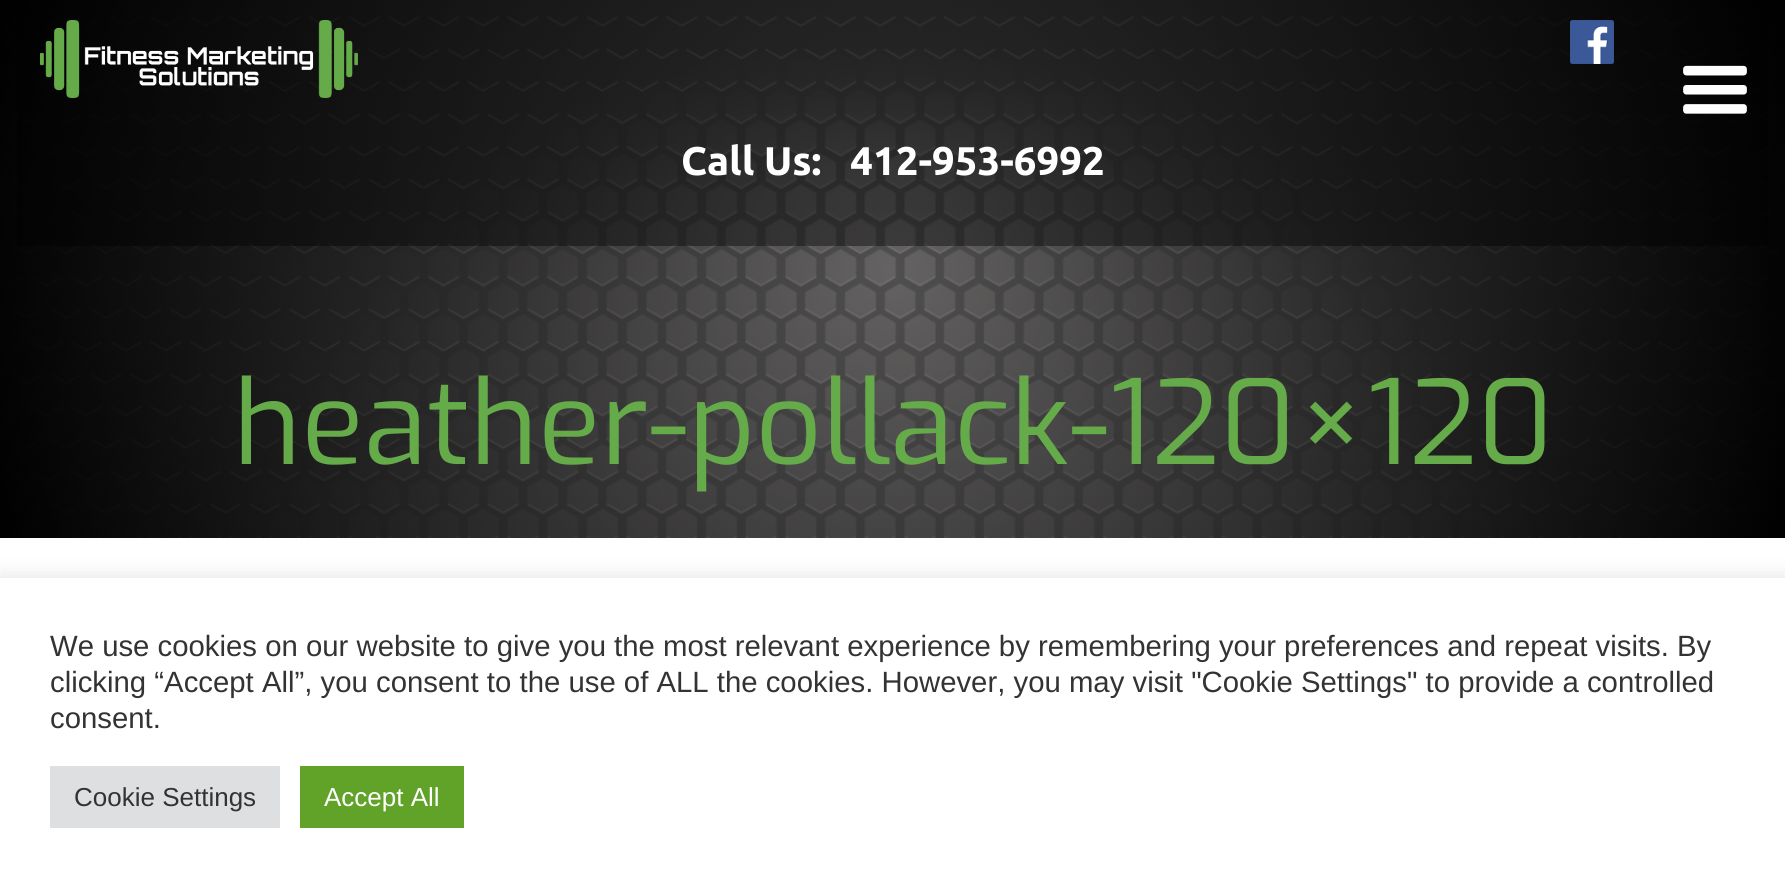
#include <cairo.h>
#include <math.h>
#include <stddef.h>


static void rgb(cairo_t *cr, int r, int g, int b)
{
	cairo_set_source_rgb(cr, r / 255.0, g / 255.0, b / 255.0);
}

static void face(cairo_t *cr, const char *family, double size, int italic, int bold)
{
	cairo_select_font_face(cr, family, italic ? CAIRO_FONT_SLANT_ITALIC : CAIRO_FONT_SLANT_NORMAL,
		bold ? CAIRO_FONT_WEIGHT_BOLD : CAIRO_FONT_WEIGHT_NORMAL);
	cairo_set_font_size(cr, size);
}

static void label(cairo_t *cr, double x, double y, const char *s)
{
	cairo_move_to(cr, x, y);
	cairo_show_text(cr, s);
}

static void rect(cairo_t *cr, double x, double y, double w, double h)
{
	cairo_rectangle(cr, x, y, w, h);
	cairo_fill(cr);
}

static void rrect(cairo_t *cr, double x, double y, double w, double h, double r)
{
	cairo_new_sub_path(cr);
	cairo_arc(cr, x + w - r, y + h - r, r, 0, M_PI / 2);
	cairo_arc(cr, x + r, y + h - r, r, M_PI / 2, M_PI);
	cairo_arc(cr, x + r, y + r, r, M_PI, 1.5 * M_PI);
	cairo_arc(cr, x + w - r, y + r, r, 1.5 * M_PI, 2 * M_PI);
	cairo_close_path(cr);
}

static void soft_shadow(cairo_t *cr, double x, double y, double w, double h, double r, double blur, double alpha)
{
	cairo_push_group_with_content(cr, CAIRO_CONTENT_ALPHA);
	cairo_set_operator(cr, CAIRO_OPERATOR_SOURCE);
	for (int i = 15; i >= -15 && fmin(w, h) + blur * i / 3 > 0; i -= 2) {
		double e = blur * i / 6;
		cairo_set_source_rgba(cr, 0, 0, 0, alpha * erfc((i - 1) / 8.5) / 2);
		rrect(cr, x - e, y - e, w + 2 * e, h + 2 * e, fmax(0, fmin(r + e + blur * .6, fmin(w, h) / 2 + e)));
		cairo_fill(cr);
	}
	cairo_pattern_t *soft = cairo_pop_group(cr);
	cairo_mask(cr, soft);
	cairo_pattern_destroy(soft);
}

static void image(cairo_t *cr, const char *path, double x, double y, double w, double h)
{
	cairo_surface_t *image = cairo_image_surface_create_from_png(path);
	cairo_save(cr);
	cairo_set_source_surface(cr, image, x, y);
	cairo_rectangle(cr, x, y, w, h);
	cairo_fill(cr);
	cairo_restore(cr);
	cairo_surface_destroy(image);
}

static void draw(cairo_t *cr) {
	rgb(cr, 255, 255, 255);
	cairo_paint(cr);
	image(cr, "image3.png", 0, 0, 1785, 538);
	cairo_set_source_rgba(cr, 0, 0, 0, 0.4);
	rect(cr, 17, 0, 1751, 246);
	image(cr, "image0.png", 40, 20, 318, 78);
	image(cr, "image1.png", 1683, 65, 64, 49);
	image(cr, "image2.png", 1570, 20, 44, 44);
	face(cr, "Ubuntu", 40, 0, 1);
	rgb(cr, 255, 255, 255);
	label(cr, 681, 175, "Call Us:   412-953-6992");
	face(cr, "Exo", 116, 0, 0);
	rgb(cr, 102, 171, 73);
	label(cr, 233, 464, "heather-pollack-120×120");
	rgb(cr, 172, 171, 171);
	soft_shadow(cr, 0, 576, 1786, 310, 0, 10, 0.3);
	rgb(cr, 255, 255, 255);
	rect(cr, 0, 578, 1785, 309);
	face(cr, "Liberation Sans", 29.33, 0, 0);
	rgb(cr, 51, 51, 51);
	label(cr, 50, 656, "We use cookies on our website to give you the most relevant experience by remembering your preferences and repeat visits. By");
	label(cr, 50, 692, "clicking “Accept All”, you consent to the use of ALL the cookies. However, you may visit \"Cookie Settings\" to provide a controlled");
	label(cr, 50, 728, "consent.");
	rgb(cr, 222, 223, 224);
	rect(cr, 50, 766, 230, 62);
	face(cr, "Liberation Sans", 26, 0, 0);
	rgb(cr, 51, 51, 51);
	label(cr, 74, 806, "Cookie Settings");
	rgb(cr, 97, 162, 41);
	rect(cr, 300, 766, 164, 62);
	rgb(cr, 255, 255, 255);
	label(cr, 324, 806, "Accept All");
}

int main(void) {
	cairo_surface_t *surface = cairo_image_surface_create(CAIRO_FORMAT_RGB24, 1785, 887);
	cairo_t *cr = cairo_create(surface);
	cairo_font_options_t *options = cairo_font_options_create();
	cairo_font_options_set_hint_metrics(options, CAIRO_HINT_METRICS_OFF);
	cairo_font_options_set_hint_style(options, CAIRO_HINT_STYLE_NONE);
	cairo_set_font_options(cr, options);
	cairo_set_miter_limit(cr, 4);
	draw(cr);
	cairo_surface_write_to_png(surface, "render.png");
	cairo_font_options_destroy(options);
	cairo_destroy(cr);
	cairo_surface_destroy(surface);
	return 0;
}
